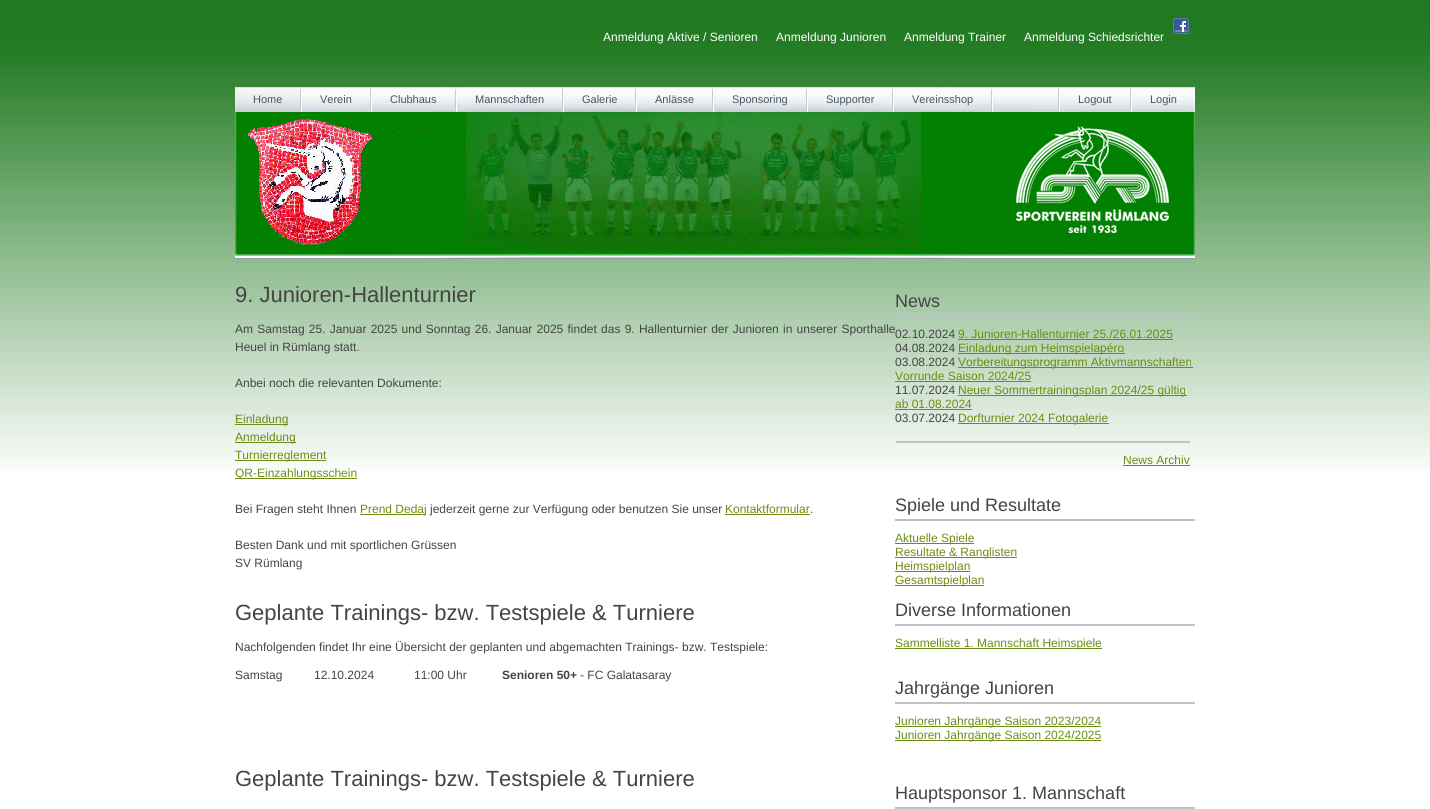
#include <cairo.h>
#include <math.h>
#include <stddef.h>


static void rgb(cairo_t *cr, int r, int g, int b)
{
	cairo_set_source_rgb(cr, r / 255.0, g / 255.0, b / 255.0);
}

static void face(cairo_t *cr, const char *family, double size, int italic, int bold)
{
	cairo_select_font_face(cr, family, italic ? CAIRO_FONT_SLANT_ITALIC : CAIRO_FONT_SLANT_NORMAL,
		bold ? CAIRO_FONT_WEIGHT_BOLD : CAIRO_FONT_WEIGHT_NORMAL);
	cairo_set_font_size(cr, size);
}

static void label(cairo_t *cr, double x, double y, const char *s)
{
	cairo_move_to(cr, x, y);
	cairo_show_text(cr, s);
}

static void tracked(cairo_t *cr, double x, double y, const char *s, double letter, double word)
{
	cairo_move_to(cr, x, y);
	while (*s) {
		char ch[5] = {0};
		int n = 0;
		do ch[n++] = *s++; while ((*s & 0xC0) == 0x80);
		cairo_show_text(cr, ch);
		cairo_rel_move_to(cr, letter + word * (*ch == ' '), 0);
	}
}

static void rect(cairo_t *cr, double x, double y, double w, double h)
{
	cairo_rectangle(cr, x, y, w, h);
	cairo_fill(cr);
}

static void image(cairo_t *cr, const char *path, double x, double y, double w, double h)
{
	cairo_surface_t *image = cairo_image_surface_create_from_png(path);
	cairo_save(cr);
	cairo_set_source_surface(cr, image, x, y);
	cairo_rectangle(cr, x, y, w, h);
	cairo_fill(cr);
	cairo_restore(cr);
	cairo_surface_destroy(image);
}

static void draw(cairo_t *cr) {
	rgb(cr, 255, 255, 255);
	cairo_paint(cr);
	image(cr, "image0.png", 0, 0, 1430, 470);
	image(cr, "image1.png", 235, 87, 960, 171);
	rgb(cr, 140, 155, 165);
	rect(cr, 235, 258, 960, 1);
	image(cr, "image2.png", 1173, 18, 16, 16);
	face(cr, "Liberation Sans", 12, 0, 0);
	rgb(cr, 255, 255, 255);
	label(cr, 603, 41, "Anmeldung Aktive / Senioren");
	label(cr, 776, 41, "Anmeldung Junioren");
	label(cr, 904, 41, "Anmeldung Trainer");
	label(cr, 1024, 41, "Anmeldung Schiedsrichter");
	image(cr, "image3.png", 300, 89, 2, 23);
	image(cr, "image4.png", 235, 89, 65, 23);
	face(cr, "Liberation Sans", 11, 0, 0);
	rgb(cr, 70, 86, 94);
	label(cr, 253, 103, "Home");
	image(cr, "image3.png", 370, 89, 2, 23);
	label(cr, 320, 103, "Verein");
	image(cr, "image3.png", 455, 89, 2, 23);
	label(cr, 390, 103, "Clubhaus");
	image(cr, "image3.png", 562, 89, 2, 23);
	label(cr, 475, 103, "Mannschaften");
	image(cr, "image3.png", 635, 89, 2, 23);
	label(cr, 582, 103, "Galerie");
	image(cr, "image3.png", 712, 89, 2, 23);
	label(cr, 655, 103, "Anlässe");
	image(cr, "image3.png", 806, 89, 2, 23);
	label(cr, 732, 103, "Sponsoring");
	image(cr, "image3.png", 892, 89, 2, 23);
	label(cr, 826, 103, "Supporter");
	image(cr, "image3.png", 991, 89, 2, 23);
	label(cr, 912, 103, "Vereinsshop");
	image(cr, "image3.png", 1058, 89, 2, 23);
	label(cr, 1078, 103, "Logout");
	image(cr, "image3.png", 1130, 89, 2, 23);
	label(cr, 1150, 103, "Login");
	face(cr, "Liberation Sans", 22, 0, 0);
	rgb(cr, 68, 68, 68);
	label(cr, 235, 302, "9. Junioren-Hallenturnier");
	face(cr, "Liberation Sans", 12, 0, 0);
	tracked(cr, 235, 333, "Am Samstag 25. Januar 2025 und Sonntag 26. Januar 2025 findet das 9. Hallenturnier der Junioren in unserer Sporthalle", 0, 0.9);
	label(cr, 235, 351, "Heuel in Rümlang statt.");
	label(cr, 235, 387, "Anbei noch die relevanten Dokumente:");
	rgb(cr, 108, 140, 20);
	rect(cr, 235, 424, 53, 1);
	label(cr, 235, 423, "Einladung");
	rect(cr, 235, 442, 61, 1);
	label(cr, 235, 441, "Anmeldung");
	rect(cr, 235, 460, 91, 1);
	label(cr, 235, 459, "Turnierreglement");
	rect(cr, 235, 478, 122, 1);
	label(cr, 235, 477, "QR-Einzahlungsschein");
	rgb(cr, 68, 68, 68);
	label(cr, 235, 513, "Bei Fragen steht Ihnen");
	rgb(cr, 108, 140, 20);
	rect(cr, 360, 514, 66, 1);
	label(cr, 360, 513, "Prend Dedaj");
	rgb(cr, 68, 68, 68);
	label(cr, 430, 513, "jederzeit gerne zur Verfügung oder benutzen Sie unser");
	rgb(cr, 108, 140, 20);
	label(cr, 725, 513, "Kontaktformular");
	rect(cr, 725, 514, 85, 1);
	rgb(cr, 68, 68, 68);
	label(cr, 810, 513, ".");
	label(cr, 235, 549, "Besten Dank und mit sportlichen Grüssen");
	label(cr, 235, 567, "SV Rümlang");
	face(cr, "Liberation Sans", 22, 0, 0);
	label(cr, 235, 620, "Geplante Trainings- bzw. Testspiele & Turniere");
	face(cr, "Liberation Sans", 12, 0, 0);
	label(cr, 235, 651, "Nachfolgenden findet Ihr eine Übersicht der geplanten und abgemachten Trainings- bzw. Testspiele:");
	label(cr, 235, 679, "Samstag");
	label(cr, 314, 679, "12.10.2024");
	label(cr, 414, 679, "11:00 Uhr");
	face(cr, "Liberation Sans", 12, 0, 1);
	label(cr, 502, 679, "Senioren 50+");
	face(cr, "Liberation Sans", 12, 0, 0);
	label(cr, 580, 679, "- FC Galatasaray");
	face(cr, "Liberation Sans", 22, 0, 0);
	label(cr, 235, 786, "Geplante Trainings- bzw. Testspiele & Turniere");
	rgb(cr, 184, 195, 204);
	rect(cr, 895, 315, 300, 2);
	face(cr, "Liberation Sans", 18, 0, 0);
	rgb(cr, 68, 68, 68);
	label(cr, 895, 307, "News");
	face(cr, "Liberation Sans", 12, 0, 0);
	label(cr, 895, 338, "02.10.2024");
	rgb(cr, 108, 140, 20);
	label(cr, 958, 338, "9. Junioren-Hallenturnier 25./26.01.2025");
	rect(cr, 958, 339, 215, 1);
	rgb(cr, 68, 68, 68);
	label(cr, 895, 352, "04.08.2024");
	rgb(cr, 108, 140, 20);
	rect(cr, 958, 353, 167, 1);
	label(cr, 958, 352, "Einladung zum Heimspielapéro");
	rgb(cr, 68, 68, 68);
	label(cr, 895, 366, "03.08.2024");
	rgb(cr, 108, 140, 20);
	rect(cr, 958, 367, 235, 1);
	label(cr, 958, 366, "Vorbereitungsprogramm Aktivmannschaften");
	label(cr, 895, 380, "Vorrunde Saison 2024/25");
	rect(cr, 895, 381, 136, 1);
	rgb(cr, 68, 68, 68);
	label(cr, 895, 394, "11.07.2024");
	rgb(cr, 108, 140, 20);
	rect(cr, 958, 395, 229, 1);
	label(cr, 958, 394, "Neuer Sommertrainingsplan 2024/25 gültig");
	label(cr, 895, 408, "ab 01.08.2024");
	rect(cr, 895, 409, 77, 1);
	rgb(cr, 68, 68, 68);
	label(cr, 895, 422, "03.07.2024");
	rgb(cr, 108, 140, 20);
	rect(cr, 958, 423, 151, 1);
	label(cr, 958, 422, "Dorfturnier 2024 Fotogalerie");
	rgb(cr, 184, 195, 204);
	rect(cr, 896, 441, 294, 2);
	rgb(cr, 108, 140, 20);
	label(cr, 1123, 464, "News Archiv");
	rect(cr, 1123, 465, 67, 1);
	rgb(cr, 184, 195, 204);
	rect(cr, 895, 519, 300, 2);
	face(cr, "Liberation Sans", 18, 0, 0);
	rgb(cr, 68, 68, 68);
	label(cr, 895, 511, "Spiele und Resultate");
	rgb(cr, 108, 140, 20);
	rect(cr, 895, 543, 79, 1);
	face(cr, "Liberation Sans", 12, 0, 0);
	label(cr, 895, 542, "Aktuelle Spiele");
	rect(cr, 895, 557, 122, 1);
	label(cr, 895, 556, "Resultate & Ranglisten");
	rect(cr, 895, 571, 75, 1);
	label(cr, 895, 570, "Heimspielplan");
	rect(cr, 895, 585, 89, 1);
	label(cr, 895, 584, "Gesamtspielplan");
	rgb(cr, 184, 195, 204);
	rect(cr, 895, 624, 300, 2);
	face(cr, "Liberation Sans", 18, 0, 0);
	rgb(cr, 68, 68, 68);
	label(cr, 895, 616, "Diverse Informationen");
	rgb(cr, 108, 140, 20);
	rect(cr, 895, 648, 207, 1);
	face(cr, "Liberation Sans", 12, 0, 0);
	label(cr, 895, 647, "Sammelliste 1. Mannschaft Heimspiele");
	rgb(cr, 184, 195, 204);
	rect(cr, 895, 702, 300, 2);
	face(cr, "Liberation Sans", 18, 0, 0);
	rgb(cr, 68, 68, 68);
	label(cr, 895, 694, "Jahrgänge Junioren");
	rgb(cr, 108, 140, 20);
	rect(cr, 895, 726, 206, 1);
	face(cr, "Liberation Sans", 12, 0, 0);
	label(cr, 895, 725, "Junioren Jahrgänge Saison 2023/2024");
	rect(cr, 895, 740, 206, 1);
	label(cr, 895, 739, "Junioren Jahrgänge Saison 2024/2025");
	rgb(cr, 184, 195, 204);
	rect(cr, 895, 807, 300, 2);
	face(cr, "Liberation Sans", 18, 0, 0);
	rgb(cr, 68, 68, 68);
	label(cr, 895, 799, "Hauptsponsor 1. Mannschaft");
}

int main(void) {
	cairo_surface_t *surface = cairo_image_surface_create(CAIRO_FORMAT_RGB24, 1430, 809);
	cairo_t *cr = cairo_create(surface);
	cairo_font_options_t *options = cairo_font_options_create();
	cairo_font_options_set_hint_metrics(options, CAIRO_HINT_METRICS_OFF);
	cairo_font_options_set_hint_style(options, CAIRO_HINT_STYLE_NONE);
	cairo_set_font_options(cr, options);
	cairo_set_miter_limit(cr, 4);
	draw(cr);
	cairo_surface_write_to_png(surface, "render.png");
	cairo_font_options_destroy(options);
	cairo_destroy(cr);
	cairo_surface_destroy(surface);
	return 0;
}
